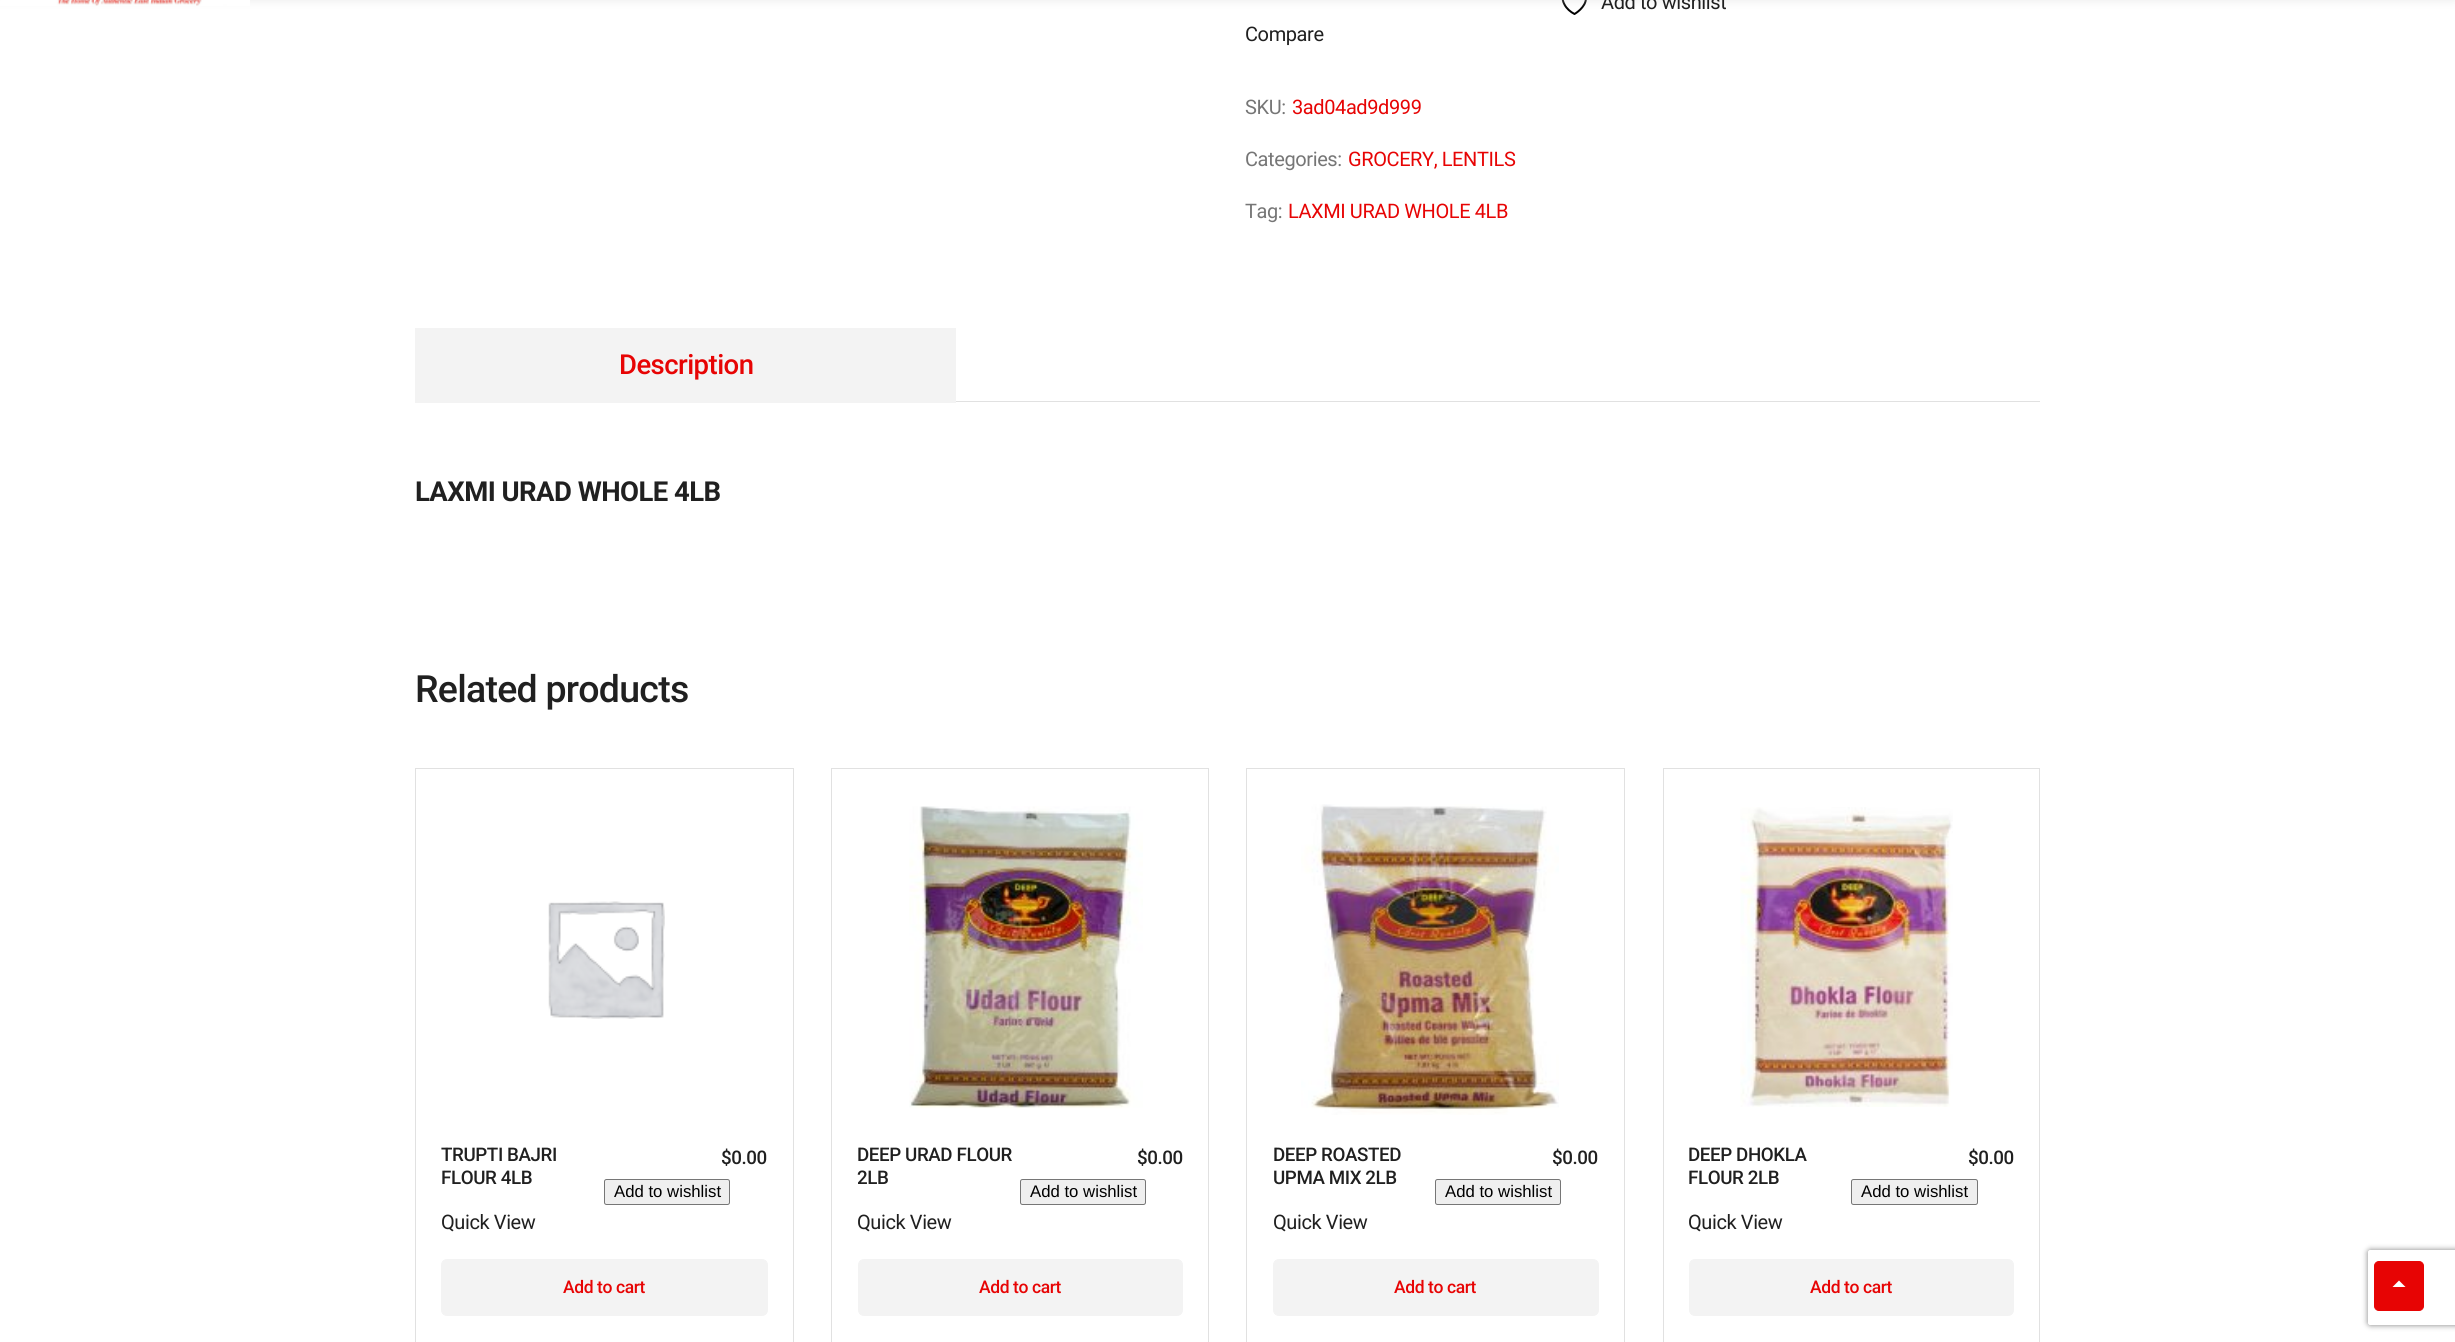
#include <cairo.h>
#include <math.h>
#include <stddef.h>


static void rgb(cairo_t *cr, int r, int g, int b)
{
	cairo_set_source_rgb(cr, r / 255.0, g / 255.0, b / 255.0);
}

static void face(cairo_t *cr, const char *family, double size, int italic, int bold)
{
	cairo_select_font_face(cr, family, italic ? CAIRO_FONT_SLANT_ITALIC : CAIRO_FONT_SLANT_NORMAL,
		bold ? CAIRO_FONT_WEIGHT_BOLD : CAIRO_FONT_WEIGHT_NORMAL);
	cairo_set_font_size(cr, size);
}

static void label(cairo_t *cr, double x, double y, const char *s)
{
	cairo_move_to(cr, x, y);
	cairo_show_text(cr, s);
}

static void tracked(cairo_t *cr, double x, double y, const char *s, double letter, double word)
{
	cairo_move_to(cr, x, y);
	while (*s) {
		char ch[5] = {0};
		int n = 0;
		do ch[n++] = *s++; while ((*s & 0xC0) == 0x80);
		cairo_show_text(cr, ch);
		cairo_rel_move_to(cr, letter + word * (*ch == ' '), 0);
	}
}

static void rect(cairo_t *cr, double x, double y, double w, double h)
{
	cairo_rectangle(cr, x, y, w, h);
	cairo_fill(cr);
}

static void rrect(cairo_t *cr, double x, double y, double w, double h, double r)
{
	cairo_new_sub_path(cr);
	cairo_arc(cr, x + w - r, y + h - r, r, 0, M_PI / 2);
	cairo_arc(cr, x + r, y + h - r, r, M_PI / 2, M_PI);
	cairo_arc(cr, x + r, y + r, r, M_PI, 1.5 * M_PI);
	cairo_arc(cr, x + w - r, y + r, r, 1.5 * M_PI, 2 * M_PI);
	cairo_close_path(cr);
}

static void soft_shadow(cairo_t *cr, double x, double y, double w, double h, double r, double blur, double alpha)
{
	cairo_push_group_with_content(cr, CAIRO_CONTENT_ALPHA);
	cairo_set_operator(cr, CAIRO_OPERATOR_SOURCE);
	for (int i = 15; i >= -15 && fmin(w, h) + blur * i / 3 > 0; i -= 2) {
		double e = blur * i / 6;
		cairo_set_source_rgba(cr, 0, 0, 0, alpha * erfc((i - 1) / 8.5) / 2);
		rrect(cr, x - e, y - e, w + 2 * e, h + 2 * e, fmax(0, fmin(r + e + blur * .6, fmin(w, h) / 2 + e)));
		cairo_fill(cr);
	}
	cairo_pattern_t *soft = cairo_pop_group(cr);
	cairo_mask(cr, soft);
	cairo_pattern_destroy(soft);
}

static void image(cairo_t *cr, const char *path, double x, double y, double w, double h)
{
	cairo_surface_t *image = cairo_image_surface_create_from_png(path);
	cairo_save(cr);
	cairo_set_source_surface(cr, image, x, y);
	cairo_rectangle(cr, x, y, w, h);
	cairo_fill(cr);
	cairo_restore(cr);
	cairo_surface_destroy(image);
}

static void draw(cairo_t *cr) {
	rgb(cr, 255, 255, 255);
	cairo_paint(cr);
	cairo_new_path(cr);
	cairo_move_to(cr, 1586, -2);
	cairo_curve_to(cr, 1586, -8, 1577, -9.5, 1574.5, -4);
	cairo_curve_to(cr, 1571, -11.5, 1558, -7, 1564.5, 4.5);
	cairo_curve_to(cr, 1566.5, 8.5, 1570.5, 12, 1574.5, 14);
	cairo_curve_to(cr, 1574.5, 14, 1586, 7.5, 1586, -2);
	cairo_close_path(cr);
	rgb(cr, 0, 0, 0);
	cairo_set_line_cap(cr, CAIRO_LINE_CAP_ROUND);
	cairo_set_line_join(cr, CAIRO_LINE_JOIN_ROUND);
	cairo_stroke(cr);
	rgb(cr, 213, 213, 213);
	soft_shadow(cr, 0, -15, 2455, 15, 0, 5, 0.5);
	image(cr, "image0.png", 0, 0, 250, 6);
	face(cr, "Roboto", 20, 0, 0);
	rgb(cr, 32, 32, 32);
	tracked(cr, 1601, 9, "Add to wishlist", -0.4, 0);
	tracked(cr, 1245, 41, "Compare", -0.4, 0);
	rgb(cr, 118, 118, 118);
	tracked(cr, 1245, 114, "SKU:", -0.4, 0);
	rgb(cr, 231, 4, 4);
	tracked(cr, 1292, 114, "3ad04ad9d999", -0.4, 0);
	rgb(cr, 118, 118, 118);
	tracked(cr, 1245, 166, "Categories:", -0.4, 0);
	rgb(cr, 231, 4, 4);
	tracked(cr, 1348, 166, "GROCERY, LENTILS", -0.4, 0);
	rgb(cr, 118, 118, 118);
	tracked(cr, 1245, 218, "Tag:", -0.4, 0);
	rgb(cr, 231, 4, 4);
	tracked(cr, 1288, 218, "LAXMI URAD WHOLE 4LB", -0.4, 0);
	rgb(cr, 243, 243, 243);
	rect(cr, 415, 328, 541, 75);
	face(cr, "Roboto Medium", 27.5, 0, 0);
	rgb(cr, 231, 4, 4);
	tracked(cr, 619, 374, "Description", -0.55, 0);
	rgb(cr, 225, 225, 225);
	rect(cr, 956, 401, 1084, 1);
	face(cr, "Roboto", 27.5, 0, 1);
	rgb(cr, 32, 32, 32);
	tracked(cr, 415, 501, "LAXMI URAD WHOLE 4LB", -0.55, 0);
	face(cr, "Roboto Medium", 37.5, 0, 0);
	tracked(cr, 415, 702, "Related products", -0.75, 0);
	cairo_rectangle(cr, 415.5, 768.5, 378, 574);
	rgb(cr, 225, 225, 225);
	cairo_set_line_width(cr, 1);
	cairo_set_line_cap(cr, CAIRO_LINE_CAP_BUTT);
	cairo_set_line_join(cr, CAIRO_LINE_JOIN_MITER);
	cairo_stroke(cr);
	image(cr, "image1.png", 548, 901, 117, 118);
	face(cr, "Roboto Medium", 18.75, 0, 0);
	rgb(cr, 32, 32, 32);
	tracked(cr, 441, 1161, "TRUPTI BAJRI", -0.4, 0);
	tracked(cr, 441, 1184, "FLOUR 4LB", -0.4, 0);
	tracked(cr, 721, 1164, "$0.00", -0.4, 0);
	rgb(cr, 239, 239, 239);
	rrect(cr, 604.5, 1179.5, 125, 25, 2);
	cairo_fill_preserve(cr);
	rgb(cr, 118, 118, 118);
	cairo_stroke(cr);
	face(cr, "Liberation Sans", 16.75, 0, 0);
	rgb(cr, 0, 0, 0);
	label(cr, 614, 1197, "Add to wishlist");
	face(cr, "Roboto", 20, 0, 0);
	rgb(cr, 32, 32, 32);
	tracked(cr, 441, 1229, "Quick View", -0.4, 0);
	rgb(cr, 243, 243, 243);
	rrect(cr, 441.5, 1259.5, 326, 56, 5.5);
	cairo_fill_preserve(cr);
	cairo_stroke(cr);
	face(cr, "Roboto Medium", 17.5, 0, 0);
	rgb(cr, 231, 4, 4);
	tracked(cr, 563, 1293, "Add to cart", -0.4, 0);
	cairo_rectangle(cr, 831.5, 768.5, 377, 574);
	rgb(cr, 225, 225, 225);
	cairo_stroke(cr);
	image(cr, "image2.png", 909, 806, 234, 303);
	face(cr, "Roboto Medium", 18.75, 0, 0);
	rgb(cr, 32, 32, 32);
	tracked(cr, 857, 1161, "DEEP URAD FLOUR", -0.4, 0);
	tracked(cr, 857, 1184, "2LB", -0.4, 0);
	tracked(cr, 1137, 1164, "$0.00", -0.4, 0);
	rgb(cr, 239, 239, 239);
	rrect(cr, 1020.5, 1179.5, 125, 25, 2);
	cairo_fill_preserve(cr);
	rgb(cr, 118, 118, 118);
	cairo_stroke(cr);
	face(cr, "Liberation Sans", 16.75, 0, 0);
	rgb(cr, 0, 0, 0);
	label(cr, 1030, 1197, "Add to wishlist");
	face(cr, "Roboto", 20, 0, 0);
	rgb(cr, 32, 32, 32);
	tracked(cr, 857, 1229, "Quick View", -0.4, 0);
	rgb(cr, 243, 243, 243);
	rrect(cr, 858.5, 1259.5, 324, 56, 5.5);
	cairo_fill_preserve(cr);
	cairo_stroke(cr);
	face(cr, "Roboto Medium", 17.5, 0, 0);
	rgb(cr, 231, 4, 4);
	tracked(cr, 979, 1293, "Add to cart", -0.4, 0);
	cairo_rectangle(cr, 1246.5, 768.5, 378, 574);
	rgb(cr, 225, 225, 225);
	cairo_stroke(cr);
	image(cr, "image3.png", 1301, 804, 258, 311);
	face(cr, "Roboto Medium", 18.75, 0, 0);
	rgb(cr, 32, 32, 32);
	tracked(cr, 1273, 1161, "DEEP ROASTED", -0.4, 0);
	tracked(cr, 1273, 1184, "UPMA MIX 2LB", -0.4, 0);
	tracked(cr, 1552, 1164, "$0.00", -0.4, 0);
	rgb(cr, 239, 239, 239);
	rrect(cr, 1435.5, 1179.5, 125, 25, 2);
	cairo_fill_preserve(cr);
	rgb(cr, 118, 118, 118);
	cairo_stroke(cr);
	face(cr, "Liberation Sans", 16.75, 0, 0);
	rgb(cr, 0, 0, 0);
	label(cr, 1445, 1197, "Add to wishlist");
	face(cr, "Roboto", 20, 0, 0);
	rgb(cr, 32, 32, 32);
	tracked(cr, 1273, 1229, "Quick View", -0.4, 0);
	rgb(cr, 243, 243, 243);
	rrect(cr, 1273.5, 1259.5, 325, 56, 5.5);
	cairo_fill_preserve(cr);
	cairo_stroke(cr);
	face(cr, "Roboto Medium", 17.5, 0, 0);
	rgb(cr, 231, 4, 4);
	tracked(cr, 1394, 1293, "Add to cart", -0.4, 0);
	cairo_rectangle(cr, 1663.5, 768.5, 376, 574);
	rgb(cr, 225, 225, 225);
	cairo_stroke(cr);
	image(cr, "image4.png", 1740, 807, 213, 300);
	face(cr, "Roboto Medium", 18.75, 0, 0);
	rgb(cr, 32, 32, 32);
	tracked(cr, 1688, 1161, "DEEP DHOKLA", -0.4, 0);
	tracked(cr, 1688, 1184, "FLOUR 2LB", -0.4, 0);
	tracked(cr, 1968, 1164, "$0.00", -0.4, 0);
	rgb(cr, 239, 239, 239);
	rrect(cr, 1851.5, 1179.5, 126, 25, 2);
	cairo_fill_preserve(cr);
	rgb(cr, 118, 118, 118);
	cairo_stroke(cr);
	face(cr, "Liberation Sans", 16.75, 0, 0);
	rgb(cr, 0, 0, 0);
	label(cr, 1861, 1197, "Add to wishlist");
	face(cr, "Roboto", 20, 0, 0);
	rgb(cr, 32, 32, 32);
	tracked(cr, 1688, 1229, "Quick View", -0.4, 0);
	rgb(cr, 243, 243, 243);
	rrect(cr, 1689.5, 1259.5, 324, 56, 5.5);
	cairo_fill_preserve(cr);
	cairo_stroke(cr);
	face(cr, "Roboto Medium", 17.5, 0, 0);
	rgb(cr, 231, 4, 4);
	tracked(cr, 1810, 1293, "Add to cart", -0.4, 0);
	cairo_save(cr);
	cairo_set_fill_rule(cr, CAIRO_FILL_RULE_EVEN_ODD);
	cairo_new_path(cr);
	cairo_move_to(cr, 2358, 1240);
	cairo_line_to(cr, 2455, 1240);
	cairo_line_to(cr, 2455, 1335);
	cairo_line_to(cr, 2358, 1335);
	cairo_close_path(cr);
	cairo_move_to(cr, 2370.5, 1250);
	cairo_line_to(cr, 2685.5, 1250);
	cairo_curve_to(cr, 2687, 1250, 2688, 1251, 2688, 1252.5);
	cairo_line_to(cr, 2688, 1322.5);
	cairo_curve_to(cr, 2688, 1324, 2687, 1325, 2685.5, 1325);
	cairo_line_to(cr, 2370.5, 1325);
	cairo_curve_to(cr, 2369, 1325, 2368, 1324, 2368, 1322.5);
	cairo_line_to(cr, 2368, 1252.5);
	cairo_curve_to(cr, 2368, 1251, 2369, 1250, 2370.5, 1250);
	cairo_close_path(cr);
	cairo_clip(cr);
	rgb(cr, 128, 128, 128);
	soft_shadow(cr, 2368, 1250, 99, 75, 2.5, 3, 1);
	cairo_restore(cr);
	rrect(cr, 2374.5, 1261.5, 49, 49, 4.5);
	cairo_fill_preserve(cr);
	cairo_stroke(cr);
	rgb(cr, 255, 255, 255);
	cairo_new_path(cr);
	cairo_move_to(cr, 2392.5, 1287);
	cairo_line_to(cr, 2399, 1280.5);
	cairo_line_to(cr, 2405.5, 1287);
	cairo_close_path(cr);
	cairo_fill(cr);
}

int main(void) {
	cairo_surface_t *surface = cairo_image_surface_create(CAIRO_FORMAT_RGB24, 2455, 1342);
	cairo_t *cr = cairo_create(surface);
	cairo_font_options_t *options = cairo_font_options_create();
	cairo_font_options_set_hint_metrics(options, CAIRO_HINT_METRICS_OFF);
	cairo_font_options_set_hint_style(options, CAIRO_HINT_STYLE_NONE);
	cairo_set_font_options(cr, options);
	cairo_set_miter_limit(cr, 4);
	draw(cr);
	cairo_surface_write_to_png(surface, "render.png");
	cairo_font_options_destroy(options);
	cairo_destroy(cr);
	cairo_surface_destroy(surface);
	return 0;
}
